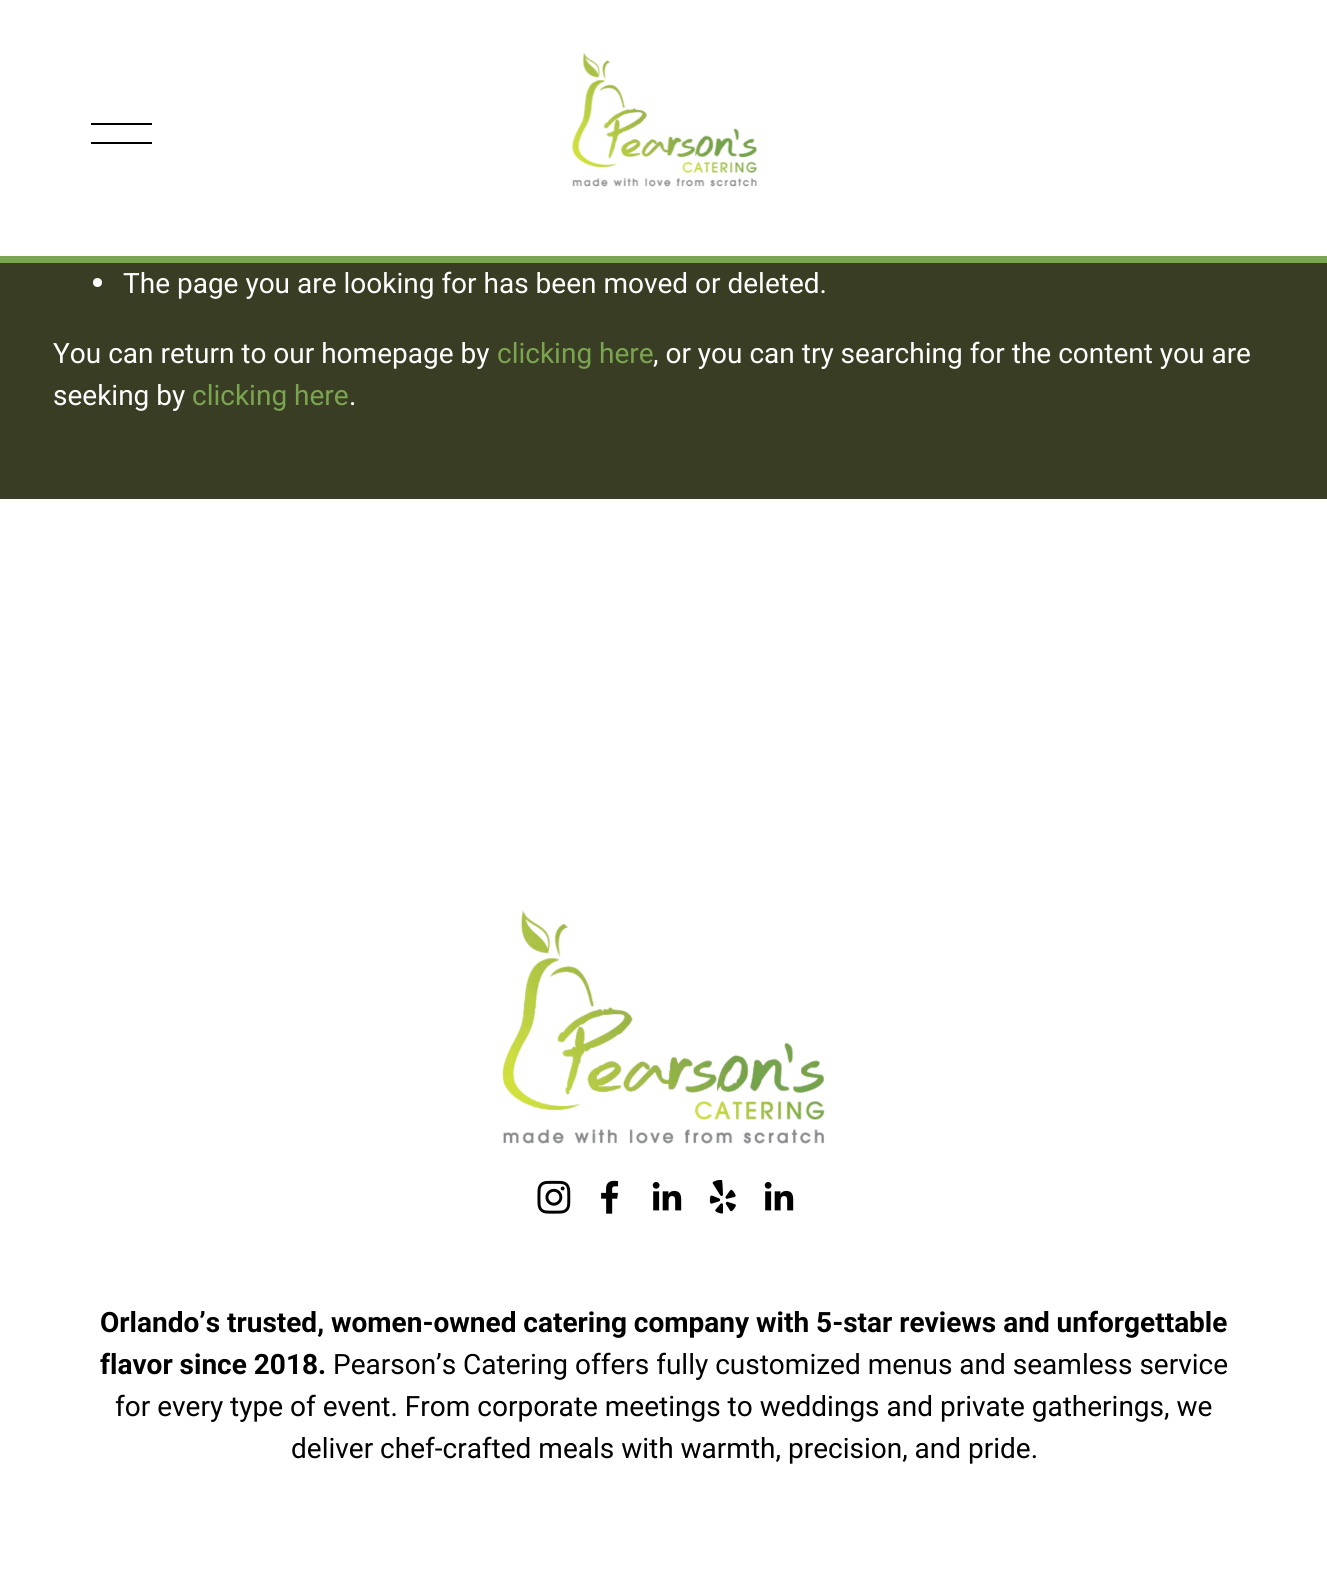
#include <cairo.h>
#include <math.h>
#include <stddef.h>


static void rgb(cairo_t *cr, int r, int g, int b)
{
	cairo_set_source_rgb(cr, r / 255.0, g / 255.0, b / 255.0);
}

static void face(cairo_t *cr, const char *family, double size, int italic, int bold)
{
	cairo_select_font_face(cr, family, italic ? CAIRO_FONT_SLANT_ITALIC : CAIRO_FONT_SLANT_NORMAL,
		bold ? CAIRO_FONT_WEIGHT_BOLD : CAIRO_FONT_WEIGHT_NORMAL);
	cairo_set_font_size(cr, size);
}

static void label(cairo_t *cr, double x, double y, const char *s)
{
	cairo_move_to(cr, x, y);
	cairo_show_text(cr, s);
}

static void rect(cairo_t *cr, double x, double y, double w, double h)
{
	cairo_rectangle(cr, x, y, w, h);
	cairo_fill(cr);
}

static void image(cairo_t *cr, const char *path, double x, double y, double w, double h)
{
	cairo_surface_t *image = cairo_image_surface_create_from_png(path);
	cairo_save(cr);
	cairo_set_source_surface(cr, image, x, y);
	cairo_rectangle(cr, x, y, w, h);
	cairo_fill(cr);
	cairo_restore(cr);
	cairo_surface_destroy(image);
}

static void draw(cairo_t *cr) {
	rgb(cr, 57, 61, 36);
	cairo_paint(cr);
	rgb(cr, 255, 255, 255);
	rect(cr, 0, 0, 1327, 256);
	rgb(cr, 0, 0, 0);
	rect(cr, 91, 123, 61, 2);
	rect(cr, 91, 142, 61, 2);
	image(cr, "image0.png", 572, 53, 186, 134);
	rgb(cr, 122, 164, 79);
	rect(cr, 0, 256, 1327, 7);
	rgb(cr, 255, 255, 255);
	cairo_arc(cr, 97.5, 282.5, 4.5, 0, 2 * M_PI);
	cairo_fill(cr);
	face(cr, "Roboto", 28, 0, 0);
	label(cr, 123, 293, "The page you are looking for has been moved or deleted.");
	label(cr, 53, 363, "You can return to our homepage by");
	rgb(cr, 122, 164, 79);
	label(cr, 497, 363, "clicking here");
	rgb(cr, 255, 255, 255);
	label(cr, 653, 363, ", or you can try searching for the content you are");
	label(cr, 53, 405, "seeking by");
	rgb(cr, 122, 164, 79);
	label(cr, 192, 405, "clicking here");
	rgb(cr, 255, 255, 255);
	label(cr, 349, 405, ".");
	rect(cr, 0, 499, 1327, 1078);
	image(cr, "image1.png", 502, 910, 323, 234);
	image(cr, "image2.png", 537, 1180, 34, 34);
	image(cr, "image3.png", 601, 1180, 18, 34);
	image(cr, "image4.png", 652, 1182, 30, 29);
	image(cr, "image5.png", 709, 1180, 27, 34);
	image(cr, "image4.png", 764, 1182, 30, 29);
	face(cr, "Roboto", 28, 0, 1);
	rgb(cr, 0, 0, 0);
	label(cr, 100, 1332, "Orlando’s trusted, women-owned catering company with 5-star reviews and unforgettable");
	label(cr, 100, 1374, "flavor since 2018.");
	face(cr, "Roboto", 28, 0, 0);
	label(cr, 333, 1374, "Pearson’s Catering offers fully customized menus and seamless service");
	label(cr, 115, 1416, "for every type of event. From corporate meetings to weddings and private gatherings, we");
	label(cr, 291, 1458, "deliver chef-crafted meals with warmth, precision, and pride.");
}

int main(void) {
	cairo_surface_t *surface = cairo_image_surface_create(CAIRO_FORMAT_RGB24, 1327, 1577);
	cairo_t *cr = cairo_create(surface);
	cairo_font_options_t *options = cairo_font_options_create();
	cairo_font_options_set_hint_metrics(options, CAIRO_HINT_METRICS_OFF);
	cairo_font_options_set_hint_style(options, CAIRO_HINT_STYLE_NONE);
	cairo_set_font_options(cr, options);
	cairo_set_miter_limit(cr, 4);
	draw(cr);
	cairo_surface_write_to_png(surface, "render.png");
	cairo_font_options_destroy(options);
	cairo_destroy(cr);
	cairo_surface_destroy(surface);
	return 0;
}
